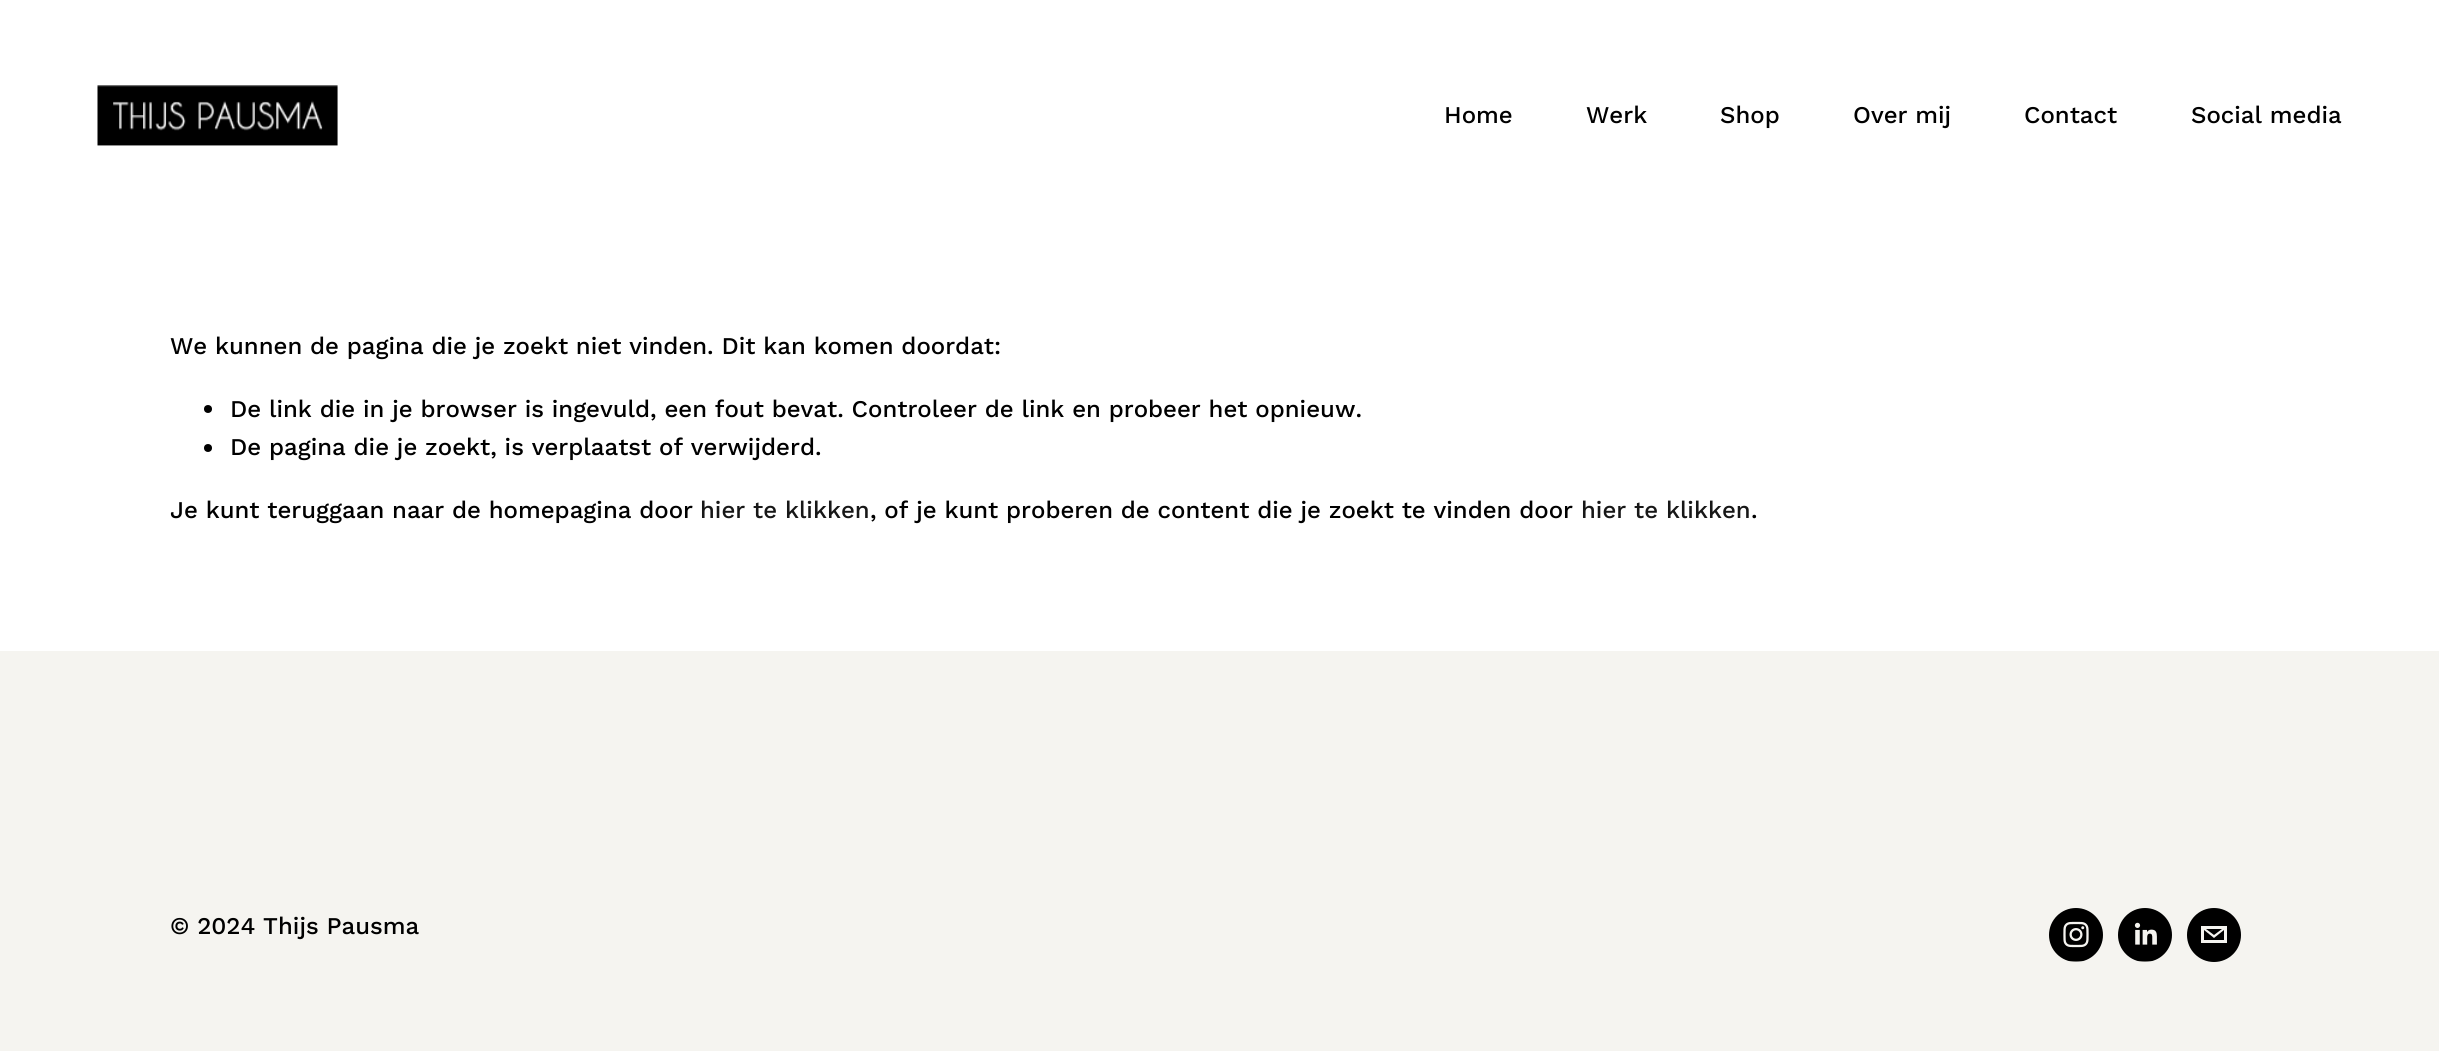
#include <cairo.h>
#include <math.h>
#include <stddef.h>


static void rgb(cairo_t *cr, int r, int g, int b)
{
	cairo_set_source_rgb(cr, r / 255.0, g / 255.0, b / 255.0);
}

static void face(cairo_t *cr, const char *family, double size, int italic, int bold)
{
	cairo_select_font_face(cr, family, italic ? CAIRO_FONT_SLANT_ITALIC : CAIRO_FONT_SLANT_NORMAL,
		bold ? CAIRO_FONT_WEIGHT_BOLD : CAIRO_FONT_WEIGHT_NORMAL);
	cairo_set_font_size(cr, size);
}

static void label(cairo_t *cr, double x, double y, const char *s)
{
	cairo_move_to(cr, x, y);
	cairo_show_text(cr, s);
}

static void rect(cairo_t *cr, double x, double y, double w, double h)
{
	cairo_rectangle(cr, x, y, w, h);
	cairo_fill(cr);
}

static void image(cairo_t *cr, const char *path, double x, double y, double w, double h)
{
	cairo_surface_t *image = cairo_image_surface_create_from_png(path);
	cairo_save(cr);
	cairo_set_source_surface(cr, image, x, y);
	cairo_rectangle(cr, x, y, w, h);
	cairo_fill(cr);
	cairo_restore(cr);
	cairo_surface_destroy(image);
}

static void draw(cairo_t *cr) {
	rgb(cr, 255, 255, 255);
	cairo_paint(cr);
	image(cr, "image0.png", 97, 85, 241, 61);
	face(cr, "Work Sans Medium", 24, 0, 0);
	rgb(cr, 0, 0, 0);
	label(cr, 1444, 123, "Home");
	label(cr, 1586, 123, "Werk");
	label(cr, 1720, 123, "Shop");
	label(cr, 1853, 123, "Over mij");
	label(cr, 2024, 123, "Contact");
	label(cr, 2191, 123, "Social media");
	label(cr, 170, 354, "We kunnen de pagina die je zoekt niet vinden. Dit kan komen doordat:");
	cairo_new_path(cr);
	cairo_arc(cr, 208, 409, 4, 0, 2 * M_PI);
	cairo_fill(cr);
	label(cr, 230, 417, "De link die in je browser is ingevuld, een fout bevat. Controleer de link en probeer het opnieuw.");
	cairo_new_path(cr);
	cairo_arc(cr, 208, 448, 4, 0, 2 * M_PI);
	cairo_fill(cr);
	label(cr, 230, 455, "De pagina die je zoekt, is verplaatst of verwijderd.");
	label(cr, 170, 518, "Je kunt teruggaan naar de homepagina door");
	rgb(cr, 23, 23, 23);
	label(cr, 700, 518, "hier te klikken");
	rgb(cr, 0, 0, 0);
	label(cr, 870, 518, ", of je kunt proberen de content die je zoekt te vinden door");
	rgb(cr, 23, 23, 23);
	label(cr, 1581, 518, "hier te klikken");
	rgb(cr, 0, 0, 0);
	label(cr, 1751, 518, ".");
	rgb(cr, 245, 244, 240);
	rect(cr, 0, 651, 2439, 400);
	rgb(cr, 0, 0, 0);
	label(cr, 170, 934, "© 2024 Thijs Pausma");
	image(cr, "image1.png", 2049, 908, 54, 54);
	image(cr, "image2.png", 2118, 908, 54, 54);
	cairo_set_fill_rule(cr, CAIRO_FILL_RULE_EVEN_ODD);
	cairo_new_path(cr);
	cairo_move_to(cr, 2214, 908);
	cairo_curve_to(cr, 2199, 908, 2187, 920, 2187, 935);
	cairo_curve_to(cr, 2187, 950, 2199, 962, 2214, 962);
	cairo_curve_to(cr, 2229, 962, 2241, 950, 2241, 935);
	cairo_curve_to(cr, 2241, 920, 2229, 908, 2214, 908);
	cairo_close_path(cr);
	cairo_move_to(cr, 2227, 943);
	cairo_line_to(cr, 2227, 926);
	cairo_line_to(cr, 2201, 926);
	cairo_line_to(cr, 2201, 943);
	cairo_close_path(cr);
	cairo_move_to(cr, 2222, 929);
	cairo_line_to(cr, 2214, 935);
	cairo_line_to(cr, 2206, 929);
	cairo_close_path(cr);
	cairo_move_to(cr, 2224, 930);
	cairo_line_to(cr, 2224, 940);
	cairo_line_to(cr, 2204, 940);
	cairo_line_to(cr, 2204, 930);
	cairo_line_to(cr, 2214, 938);
	cairo_close_path(cr);
	cairo_fill(cr);
}

int main(void) {
	cairo_surface_t *surface = cairo_image_surface_create(CAIRO_FORMAT_RGB24, 2439, 1051);
	cairo_t *cr = cairo_create(surface);
	cairo_font_options_t *options = cairo_font_options_create();
	cairo_font_options_set_hint_metrics(options, CAIRO_HINT_METRICS_OFF);
	cairo_font_options_set_hint_style(options, CAIRO_HINT_STYLE_NONE);
	cairo_set_font_options(cr, options);
	cairo_set_miter_limit(cr, 4);
	draw(cr);
	cairo_surface_write_to_png(surface, "render.png");
	cairo_font_options_destroy(options);
	cairo_destroy(cr);
	cairo_surface_destroy(surface);
	return 0;
}
